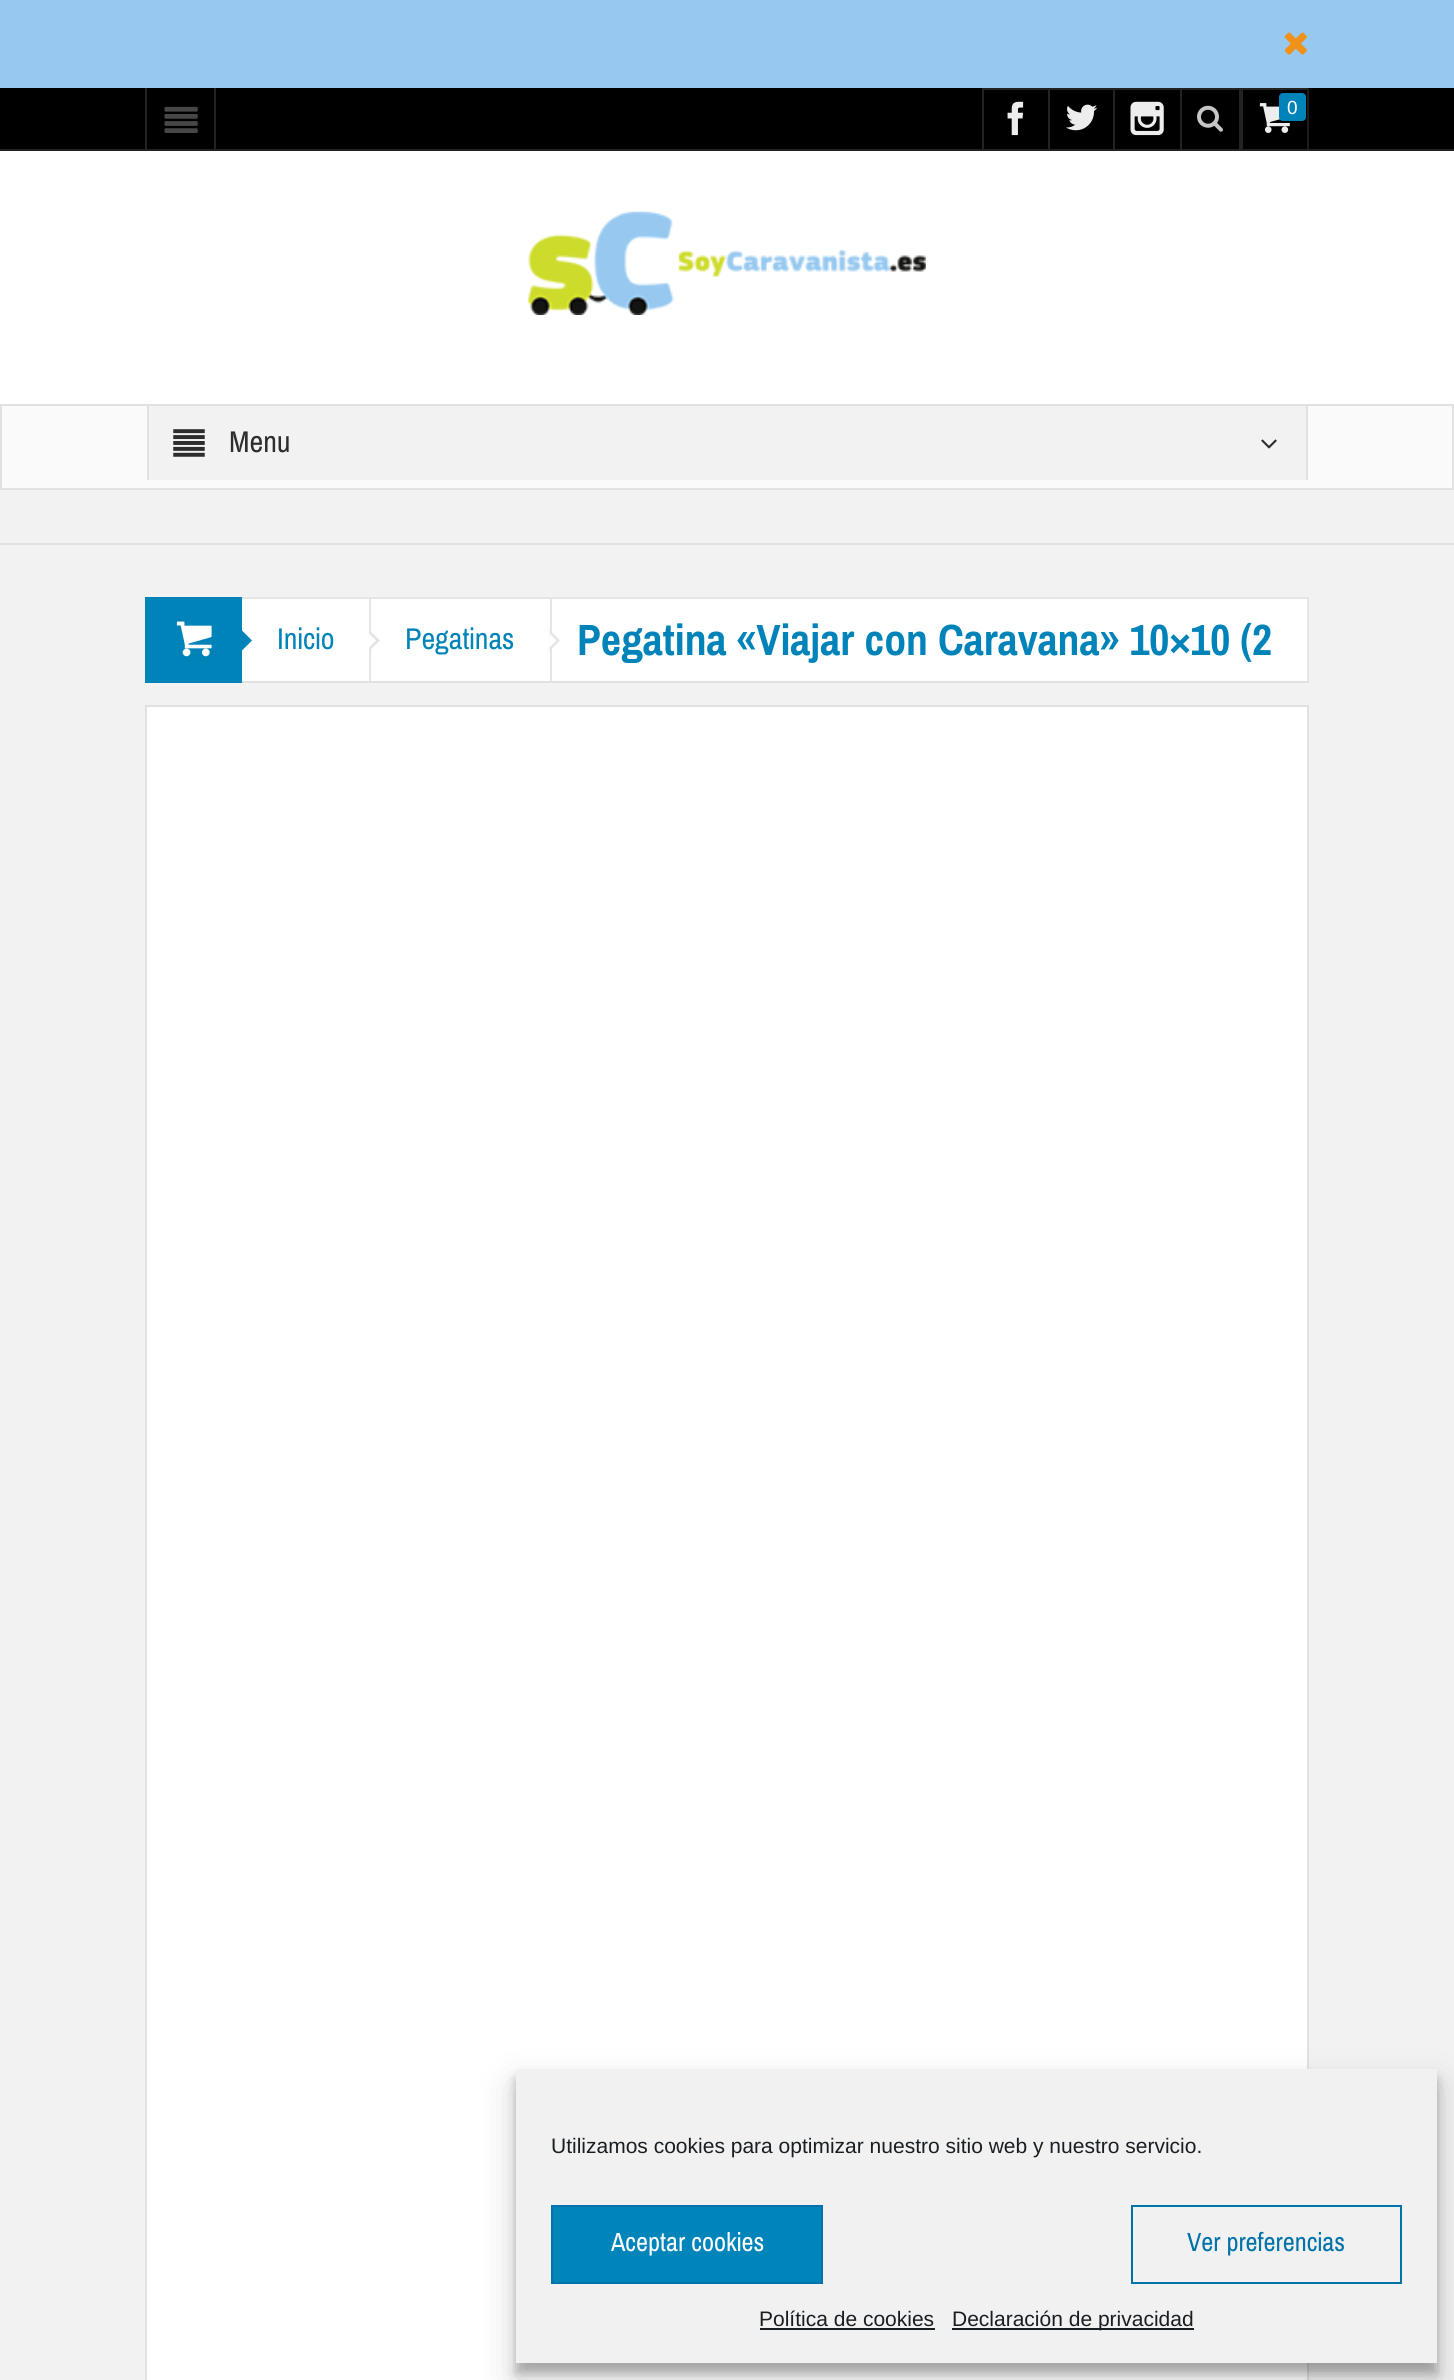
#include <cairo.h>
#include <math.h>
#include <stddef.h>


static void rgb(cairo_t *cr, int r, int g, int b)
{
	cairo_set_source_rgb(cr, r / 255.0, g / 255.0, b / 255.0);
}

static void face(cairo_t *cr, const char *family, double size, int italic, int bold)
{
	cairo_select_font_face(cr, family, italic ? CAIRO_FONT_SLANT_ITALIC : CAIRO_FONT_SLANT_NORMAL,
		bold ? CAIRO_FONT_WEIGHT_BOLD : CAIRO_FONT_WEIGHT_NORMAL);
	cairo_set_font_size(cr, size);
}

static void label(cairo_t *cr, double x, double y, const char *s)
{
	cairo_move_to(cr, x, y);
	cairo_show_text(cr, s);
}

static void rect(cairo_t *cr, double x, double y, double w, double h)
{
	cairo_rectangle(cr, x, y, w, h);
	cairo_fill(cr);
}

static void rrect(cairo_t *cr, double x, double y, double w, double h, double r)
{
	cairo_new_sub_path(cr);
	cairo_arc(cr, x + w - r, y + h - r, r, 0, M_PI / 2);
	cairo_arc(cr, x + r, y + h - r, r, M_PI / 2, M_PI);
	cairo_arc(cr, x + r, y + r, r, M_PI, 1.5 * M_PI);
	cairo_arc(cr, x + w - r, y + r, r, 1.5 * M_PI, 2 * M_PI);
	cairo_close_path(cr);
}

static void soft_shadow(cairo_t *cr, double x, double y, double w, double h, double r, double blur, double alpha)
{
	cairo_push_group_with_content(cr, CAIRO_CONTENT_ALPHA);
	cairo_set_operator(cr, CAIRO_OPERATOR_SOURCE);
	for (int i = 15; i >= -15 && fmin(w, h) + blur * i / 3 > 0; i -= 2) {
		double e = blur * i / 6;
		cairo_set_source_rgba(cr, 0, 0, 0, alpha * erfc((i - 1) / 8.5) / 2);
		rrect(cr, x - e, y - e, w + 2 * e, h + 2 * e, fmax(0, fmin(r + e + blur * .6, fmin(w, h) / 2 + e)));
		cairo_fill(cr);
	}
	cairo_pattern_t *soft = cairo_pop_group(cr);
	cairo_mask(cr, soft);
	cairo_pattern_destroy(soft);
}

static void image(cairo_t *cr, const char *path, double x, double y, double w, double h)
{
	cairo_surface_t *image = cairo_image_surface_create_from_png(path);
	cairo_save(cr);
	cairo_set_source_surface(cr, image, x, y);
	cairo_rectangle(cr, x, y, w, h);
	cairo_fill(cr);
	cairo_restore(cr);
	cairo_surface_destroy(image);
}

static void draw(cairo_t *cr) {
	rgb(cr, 242, 242, 242);
	cairo_paint(cr);
	rgb(cr, 150, 200, 240);
	rect(cr, 0, 0, 1454, 88);
	image(cr, "image0.png", 1284, 32, 23, 23);
	rgb(cr, 0, 0, 0);
	rect(cr, 0, 88, 1454, 61);
	rgb(cr, 34, 34, 34);
	rect(cr, 0, 149, 1454, 2);
	rect(cr, 214, 88, 2, 61);
	rect(cr, 145, 88, 2, 61);
	image(cr, "image1.png", 164, 106, 34, 27);
	rect(cr, 982, 88, 327, 2);
	rect(cr, 982, 88, 2, 61);
	image(cr, "image2.png", 1007, 101, 17, 35);
	rect(cr, 1048, 88, 2, 61);
	image(cr, "image3.png", 1066, 104, 32, 27);
	rect(cr, 1113, 88, 2, 61);
	image(cr, "image4.png", 1130, 101, 34, 35);
	rect(cr, 1239, 88, 4, 61);
	rect(cr, 1180, 88, 2, 61);
	image(cr, "image5.png", 1197, 105, 26, 27);
	rgb(cr, 27, 27, 27);
	rect(cr, 1307, 88, 2, 61);
	image(cr, "image6.png", 1259, 103, 31, 30);
	rgb(cr, 0, 131, 185);
	rrect(cr, 1279, 93, 27, 28, 4);
	cairo_fill(cr);
	face(cr, "Liberation Sans", 19, 0, 0);
	rgb(cr, 255, 255, 255);
	label(cr, 1287, 114, "0");
	rect(cr, 0, 151, 1454, 253);
	image(cr, "image7.png", 528, 211, 398, 104);
	rgb(cr, 250, 250, 250);
	cairo_rectangle(cr, 1, 405, 1452, 84);
	cairo_fill_preserve(cr);
	rgb(cr, 225, 225, 225);
	cairo_stroke(cr);
	rgb(cr, 242, 242, 242);
	rect(cr, 149, 406, 1157, 74);
	rgb(cr, 225, 225, 225);
	rect(cr, 1306, 406, 2, 74);
	rect(cr, 147, 406, 2, 74);
	image(cr, "image8.png", 173, 429, 32, 28);
	face(cr, "Archivo Narrow", 30, 0, 0);
	rgb(cr, 45, 45, 45);
	label(cr, 229, 452, "Menu");
	image(cr, "image9.png", 1261, 439, 16, 10);
	rgb(cr, 225, 225, 225);
	rect(cr, 0, 543, 1454, 2);
	rgb(cr, 255, 255, 255);
	rect(cr, 242, 599, 1065, 82);
	rgb(cr, 229, 229, 229);
	rect(cr, 242, 597, 1067, 2);
	rect(cr, 1307, 597, 2, 86);
	rgb(cr, 225, 225, 225);
	rect(cr, 242, 681, 1067, 2);
	rgb(cr, 0, 131, 185);
	rect(cr, 145, 597, 97, 86);
	image(cr, "image10.png", 176, 621, 36, 36);
	cairo_new_path(cr);
	cairo_move_to(cr, 241.5, 651);
	cairo_line_to(cr, 241.5, 630);
	cairo_line_to(cr, 252, 640.5);
	cairo_close_path(cr);
	cairo_fill(cr);
	rgb(cr, 229, 229, 229);
	rect(cr, 369, 599, 2, 82);
	rgb(cr, 0, 131, 185);
	label(cr, 277, 649, "Inicio");
	rgb(cr, 229, 229, 229);
	cairo_new_path(cr);
	cairo_move_to(cr, 369, 651);
	cairo_line_to(cr, 369, 630);
	cairo_line_to(cr, 380, 640.5);
	cairo_close_path(cr);
	cairo_fill(cr);
	rgb(cr, 255, 255, 255);
	cairo_new_path(cr);
	cairo_move_to(cr, 369, 647.5);
	cairo_line_to(cr, 369, 633.5);
	cairo_line_to(cr, 376, 640.5);
	cairo_close_path(cr);
	cairo_fill(cr);
	rgb(cr, 229, 229, 229);
	rect(cr, 550, 599, 2, 82);
	rgb(cr, 0, 131, 185);
	label(cr, 405, 649, "Pegatinas");
	rgb(cr, 229, 229, 229);
	cairo_new_path(cr);
	cairo_move_to(cr, 549.5, 651);
	cairo_line_to(cr, 549.5, 630);
	cairo_line_to(cr, 560, 640.5);
	cairo_close_path(cr);
	cairo_fill(cr);
	rgb(cr, 255, 255, 255);
	cairo_new_path(cr);
	cairo_move_to(cr, 549.5, 647.5);
	cairo_line_to(cr, 549.5, 633.5);
	cairo_line_to(cr, 556.5, 640.5);
	cairo_close_path(cr);
	cairo_fill(cr);
	face(cr, "Archivo Narrow", 43.75, 0, 1);
	rgb(cr, 0, 131, 185);
	label(cr, 577, 655, "Pegatina «Viajar con Caravana» 10×10 (2");
	rgb(cr, 255, 255, 255);
	cairo_rectangle(cr, 146, 706, 1162, 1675);
	cairo_fill_preserve(cr);
	rgb(cr, 225, 225, 225);
	cairo_stroke(cr);
	rgb(cr, 0, 0, 0);
	soft_shadow(cr, 516, 2079, 921, 294, 0, 5, 0.23);
	soft_shadow(cr, 516, 2086, 921, 294, 0, 17.5, 0.19);
	rgb(cr, 241, 241, 241);
	rect(cr, 516, 2069, 921, 294);
	face(cr, "Liberation Sans", 21, 0, 0);
	rgb(cr, 25, 30, 35);
	label(cr, 551, 2153, "Utilizamos cookies para optimizar nuestro sitio web y nuestro servicio.");
	rgb(cr, 0, 133, 186);
	cairo_rectangle(cr, 552, 2206, 270, 77);
	cairo_fill_preserve(cr);
	rgb(cr, 0, 115, 170);
	cairo_stroke(cr);
	face(cr, "Archivo Narrow", 26.25, 0, 0);
	rgb(cr, 255, 255, 255);
	label(cr, 611, 2251, "Aceptar cookies");
	cairo_rectangle(cr, 1132, 2206, 269, 77);
	rgb(cr, 0, 115, 170);
	cairo_stroke(cr);
	label(cr, 1187, 2251, "Ver preferencias");
	face(cr, "Liberation Sans", 21, 0, 0);
	rgb(cr, 25, 30, 35);
	label(cr, 759, 2326, "Política de cookies");
	rect(cr, 760, 2328, 175, 2);
	rect(cr, 952, 2328, 242, 2);
	label(cr, 952, 2326, "Declaración de privacidad");
}

int main(void) {
	cairo_surface_t *surface = cairo_image_surface_create(CAIRO_FORMAT_RGB24, 1454, 2380);
	cairo_t *cr = cairo_create(surface);
	cairo_font_options_t *options = cairo_font_options_create();
	cairo_font_options_set_hint_metrics(options, CAIRO_HINT_METRICS_OFF);
	cairo_font_options_set_hint_style(options, CAIRO_HINT_STYLE_NONE);
	cairo_set_font_options(cr, options);
	cairo_set_miter_limit(cr, 4);
	draw(cr);
	cairo_surface_write_to_png(surface, "render.png");
	cairo_font_options_destroy(options);
	cairo_destroy(cr);
	cairo_surface_destroy(surface);
	return 0;
}
